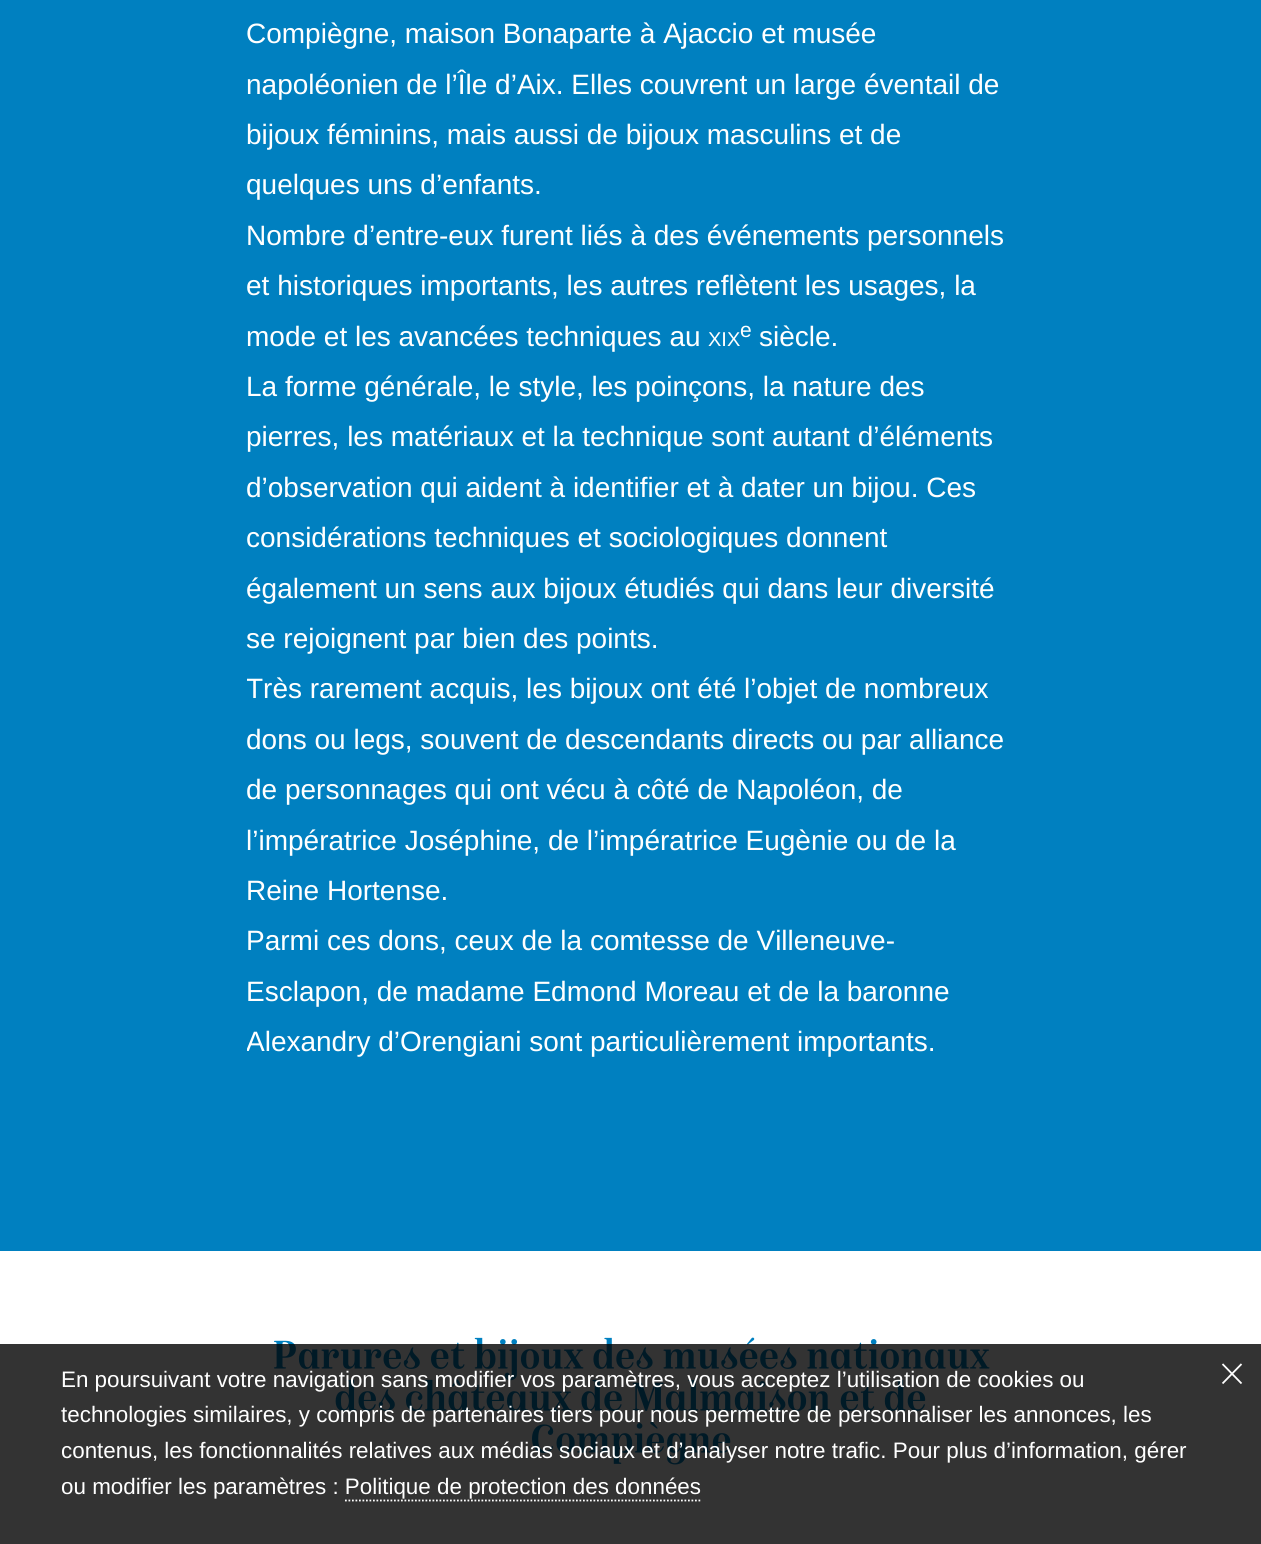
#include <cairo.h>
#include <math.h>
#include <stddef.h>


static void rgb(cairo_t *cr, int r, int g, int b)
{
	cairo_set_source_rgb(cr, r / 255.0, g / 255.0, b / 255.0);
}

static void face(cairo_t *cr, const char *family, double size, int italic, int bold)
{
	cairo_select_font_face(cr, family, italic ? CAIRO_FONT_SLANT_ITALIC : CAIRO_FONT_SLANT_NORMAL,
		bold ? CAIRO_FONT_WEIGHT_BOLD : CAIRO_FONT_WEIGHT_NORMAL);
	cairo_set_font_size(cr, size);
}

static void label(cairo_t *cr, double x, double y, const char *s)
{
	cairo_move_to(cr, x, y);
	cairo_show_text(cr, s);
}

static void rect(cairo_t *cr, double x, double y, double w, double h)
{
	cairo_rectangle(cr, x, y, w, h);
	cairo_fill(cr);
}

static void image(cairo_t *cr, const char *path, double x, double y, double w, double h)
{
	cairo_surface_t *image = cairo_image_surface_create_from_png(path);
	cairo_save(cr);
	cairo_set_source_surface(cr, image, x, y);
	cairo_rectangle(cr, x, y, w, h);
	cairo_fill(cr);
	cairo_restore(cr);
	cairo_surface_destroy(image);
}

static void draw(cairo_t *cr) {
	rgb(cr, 255, 255, 255);
	cairo_paint(cr);
	rgb(cr, 0, 128, 192);
	rect(cr, 0, 0, 1261, 1251);
	face(cr, "Liberation Sans", 28, 0, 0);
	rgb(cr, 255, 255, 255);
	label(cr, 246, 43, "Compiègne, maison Bonaparte à Ajaccio et musée");
	label(cr, 246, 94, "napoléonien de l’Île d’Aix. Elles couvrent un large éventail de");
	label(cr, 246, 144, "bijoux féminins, mais aussi de bijoux masculins et de");
	label(cr, 246, 194, "quelques uns d’enfants.");
	label(cr, 246, 245, "Nombre d’entre-eux furent liés à des événements personnels");
	label(cr, 246, 295, "et historiques importants, les autres reflètent les usages, la");
	label(cr, 246, 346, "mode et les avancées techniques au");
	face(cr, "Liberation Sans", 20, 0, 0);
	label(cr, 708, 346, "XIX");
	face(cr, "Liberation Sans", 21, 0, 0);
	label(cr, 740, 337, "e");
	face(cr, "Liberation Sans", 28, 0, 0);
	label(cr, 759, 346, "siècle.");
	label(cr, 246, 396, "La forme générale, le style, les poinçons, la nature des");
	label(cr, 246, 446, "pierres, les matériaux et la technique sont autant d’éléments");
	label(cr, 246, 497, "d’observation qui aident à identifier et à dater un bijou. Ces");
	label(cr, 246, 547, "considérations techniques et sociologiques donnent");
	label(cr, 246, 598, "également un sens aux bijoux étudiés qui dans leur diversité");
	label(cr, 246, 648, "se rejoignent par bien des points.");
	cairo_save(cr);
	cairo_rectangle(cr, 247, 0, 770, 1129);
	cairo_clip(cr);
	label(cr, 246, 698, "Très rarement acquis, les bijoux ont été l’objet de nombreux");
	cairo_restore(cr);
	label(cr, 246, 749, "dons ou legs, souvent de descendants directs ou par alliance");
	label(cr, 246, 799, "de personnages qui ont vécu à côté de Napoléon, de");
	label(cr, 246, 850, "l’impératrice Joséphine, de l’impératrice Eugènie ou de la");
	label(cr, 246, 900, "Reine Hortense.");
	label(cr, 246, 950, "Parmi ces dons, ceux de la comtesse de Villeneuve-");
	label(cr, 246, 1001, "Esclapon, de madame Edmond Moreau et de la baronne");
	cairo_save(cr);
	cairo_rectangle(cr, 247, 0, 770, 1129);
	cairo_clip(cr);
	label(cr, 246, 1051, "Alexandry d’Orengiani sont particulièrement importants.");
	cairo_restore(cr);
	image(cr, "image0.png", 274, 1337, 716, 44);
	image(cr, "image1.png", 335, 1379, 591, 32);
	image(cr, "image2.png", 532, 1421, 199, 44);
	cairo_set_source_rgba(cr, 0, 0, 0, 0.8);
	rect(cr, 0, 1344, 1261, 200);
	face(cr, "Liberation Sans", 22.4, 0, 0);
	rgb(cr, 255, 255, 255);
	label(cr, 61, 1387, "En poursuivant votre navigation sans modifier vos paramètres, vous acceptez l’utilisation de cookies ou");
	label(cr, 61, 1422, "technologies similaires, y compris de partenaires tiers pour nous permettre de personnaliser les annonces, les");
	label(cr, 61, 1458, "contenus, les fonctionnalités relatives aux médias sociaux et d’analyser notre trafic. Pour plus d’information, gérer");
	label(cr, 61, 1494, "ou modifier les paramètres : Politique de protection des données");
	cairo_new_path(cr);
	cairo_move_to(cr, 345, 1500.5);
	cairo_line_to(cr, 702, 1500.5);
	cairo_set_line_width(cr, 1.8);
	cairo_set_dash(cr, (double[]){1.75, 1.75}, 2, 0);
	cairo_stroke(cr);
	cairo_new_path(cr);
	cairo_move_to(cr, 1222.5, 1364);
	cairo_line_to(cr, 1241.5, 1383.5);
	cairo_move_to(cr, 1222.5, 1383.5);
	cairo_line_to(cr, 1241.5, 1364);
	cairo_set_dash(cr, NULL, 0, 0);
	cairo_stroke(cr);
}

int main(void) {
	cairo_surface_t *surface = cairo_image_surface_create(CAIRO_FORMAT_RGB24, 1261, 1544);
	cairo_t *cr = cairo_create(surface);
	cairo_font_options_t *options = cairo_font_options_create();
	cairo_font_options_set_hint_metrics(options, CAIRO_HINT_METRICS_OFF);
	cairo_font_options_set_hint_style(options, CAIRO_HINT_STYLE_NONE);
	cairo_set_font_options(cr, options);
	cairo_set_miter_limit(cr, 4);
	draw(cr);
	cairo_surface_write_to_png(surface, "render.png");
	cairo_font_options_destroy(options);
	cairo_destroy(cr);
	cairo_surface_destroy(surface);
	return 0;
}
